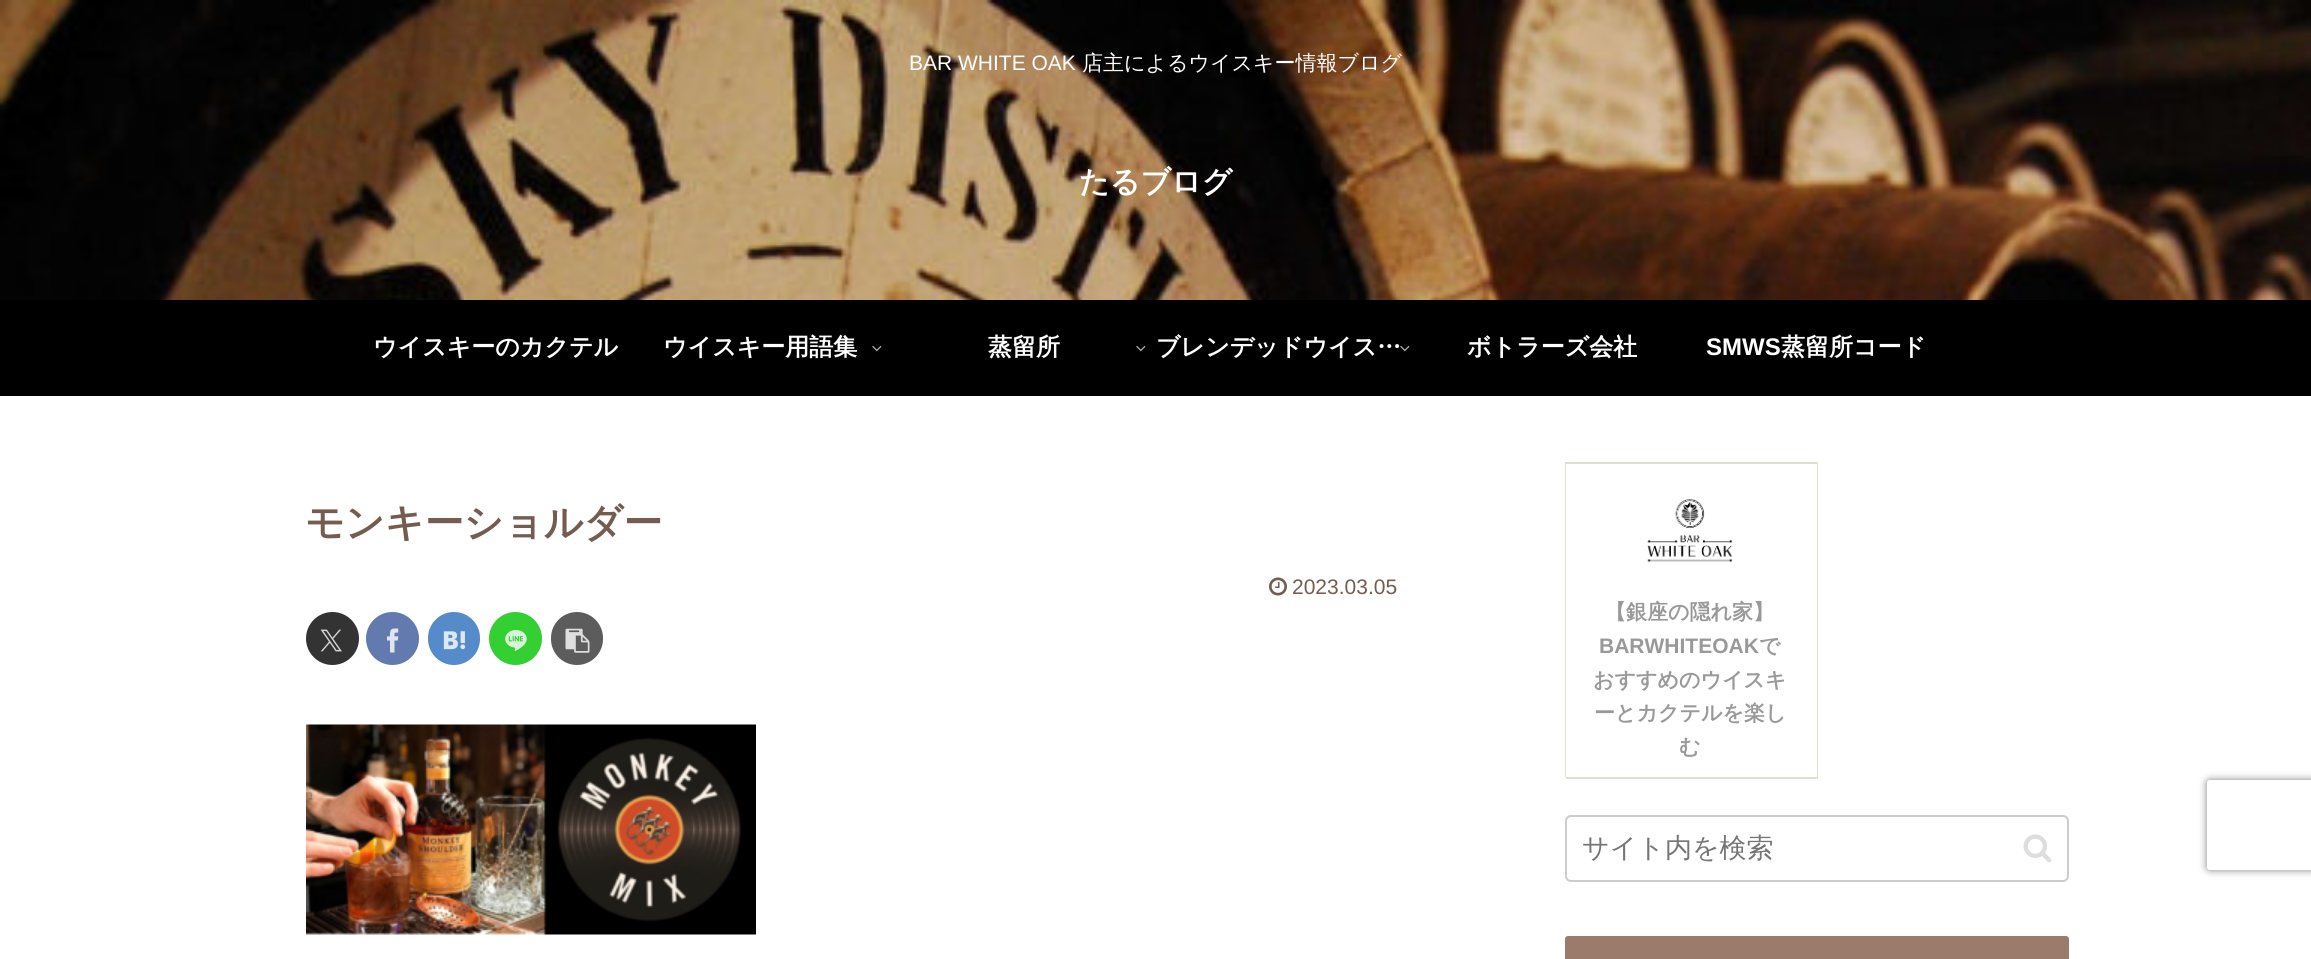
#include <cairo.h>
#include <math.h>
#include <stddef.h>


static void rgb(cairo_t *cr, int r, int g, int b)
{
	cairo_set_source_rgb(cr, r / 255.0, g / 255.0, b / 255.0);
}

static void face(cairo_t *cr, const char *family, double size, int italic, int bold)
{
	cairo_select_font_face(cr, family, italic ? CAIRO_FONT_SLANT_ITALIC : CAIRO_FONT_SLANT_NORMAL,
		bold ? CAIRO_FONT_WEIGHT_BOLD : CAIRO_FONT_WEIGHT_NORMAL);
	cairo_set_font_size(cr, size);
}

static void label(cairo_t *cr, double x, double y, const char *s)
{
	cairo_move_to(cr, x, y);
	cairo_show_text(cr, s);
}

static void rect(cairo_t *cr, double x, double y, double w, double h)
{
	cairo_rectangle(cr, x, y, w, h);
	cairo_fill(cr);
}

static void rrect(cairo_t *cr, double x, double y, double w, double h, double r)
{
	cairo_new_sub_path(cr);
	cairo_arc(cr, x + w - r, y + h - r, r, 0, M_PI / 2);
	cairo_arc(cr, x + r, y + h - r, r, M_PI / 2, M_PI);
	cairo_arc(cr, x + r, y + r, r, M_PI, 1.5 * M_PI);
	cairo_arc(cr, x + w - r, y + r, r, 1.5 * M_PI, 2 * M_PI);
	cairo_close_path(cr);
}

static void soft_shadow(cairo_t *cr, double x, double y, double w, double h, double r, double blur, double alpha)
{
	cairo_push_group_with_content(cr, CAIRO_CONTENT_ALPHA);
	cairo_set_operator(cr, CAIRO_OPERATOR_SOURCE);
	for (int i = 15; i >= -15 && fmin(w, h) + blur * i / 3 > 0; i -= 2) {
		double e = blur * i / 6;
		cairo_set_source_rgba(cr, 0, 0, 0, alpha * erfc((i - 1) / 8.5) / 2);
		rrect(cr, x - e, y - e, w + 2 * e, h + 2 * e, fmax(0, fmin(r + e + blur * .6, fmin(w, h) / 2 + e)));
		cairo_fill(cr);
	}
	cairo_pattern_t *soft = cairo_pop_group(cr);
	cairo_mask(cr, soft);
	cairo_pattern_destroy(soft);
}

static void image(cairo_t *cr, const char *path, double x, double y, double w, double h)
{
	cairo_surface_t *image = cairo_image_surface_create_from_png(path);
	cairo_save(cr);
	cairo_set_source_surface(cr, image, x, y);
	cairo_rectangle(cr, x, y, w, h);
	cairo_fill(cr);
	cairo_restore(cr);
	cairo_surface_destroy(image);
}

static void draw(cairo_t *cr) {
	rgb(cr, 255, 255, 255);
	cairo_paint(cr);
	image(cr, "image0.png", 0, 0, 2311, 300);
	face(cr, "Liberation Sans", 21, 0, 0);
	rgb(cr, 255, 255, 255);
	label(cr, 909, 70, "BAR WHITE OAK");
	face(cr, "WenQuanYi Zen Hei Medium", 21, 0, 0);
	label(cr, 1082, 70, "店主によるウイスキー情報ブログ");
	face(cr, "WenQuanYi Zen Hei", 30, 0, 1);
	label(cr, 1079, 192, "たるブログ");
	rgb(cr, 0, 0, 0);
	rect(cr, 0, 300, 2311, 96);
	face(cr, "WenQuanYi Zen Hei", 24, 0, 1);
	rgb(cr, 255, 255, 255);
	label(cr, 373, 355, "ウイスキーのカクテル");
	label(cr, 663, 355, "ウイスキー用語集");
	image(cr, "image1.png", 872, 345, 10, 7);
	label(cr, 988, 355, "蒸留所");
	image(cr, "image1.png", 1136, 345, 10, 7);
	label(cr, 1156, 355, "ブレンデッドウイス…");
	image(cr, "image1.png", 1400, 345, 10, 7);
	label(cr, 1467, 355, "ボトラーズ会社");
	face(cr, "Liberation Sans", 24, 0, 1);
	label(cr, 1706, 355, "SMWS");
	face(cr, "WenQuanYi Zen Hei", 24, 0, 1);
	label(cr, 1781, 355, "蒸留所コード");
	face(cr, "WenQuanYi Zen Hei", 39, 0, 1);
	rgb(cr, 116, 92, 81);
	label(cr, 305, 536, "モンキーショルダー");
	image(cr, "image2.png", 1269, 577, 18, 19);
	face(cr, "Liberation Sans", 21, 0, 0);
	label(cr, 1292, 594, "2023.03.05");
	rgb(cr, 51, 51, 51);
	cairo_new_path(cr);
	cairo_arc(cr, 332.5, 638.5, 26.5, 0, 2 * M_PI);
	cairo_fill(cr);
	image(cr, "image3.png", 320, 629, 22, 23);
	rgb(cr, 98, 122, 173);
	cairo_arc(cr, 392.5, 638.5, 26.5, 0, 2 * M_PI);
	cairo_fill(cr);
	image(cr, "image4.png", 387, 628, 12, 25);
	rgb(cr, 86, 139, 202);
	rrect(cr, 428, 612, 52, 53, 26);
	cairo_fill(cr);
	image(cr, "image5.png", 443, 631, 23, 19);
	rgb(cr, 51, 207, 51);
	cairo_arc(cr, 515.5, 638.5, 26.5, 0, 2 * M_PI);
	cairo_fill(cr);
	image(cr, "image6.png", 505, 630, 22, 21);
	rgb(cr, 92, 92, 92);
	rrect(cr, 551, 612, 52, 53, 26);
	cairo_fill(cr);
	image(cr, "image7.png", 565, 628, 25, 25);
	image(cr, "image8.png", 306, 724, 450, 211);
	rgb(cr, 224, 221, 209);
	rect(cr, 1817, 462, 1, 2);
	cairo_new_path(cr);
	cairo_move_to(cr, 1566, 777);
	cairo_line_to(cr, 1566, 779);
	cairo_line_to(cr, 1818, 779);
	cairo_line_to(cr, 1818, 464);
	cairo_line_to(cr, 1816, 464);
	cairo_line_to(cr, 1816, 777);
	cairo_close_path(cr);
	cairo_fill(cr);
	rgb(cr, 255, 255, 255);
	rect(cr, 1816, 464, 1, 313);
	cairo_save(cr);
	cairo_rectangle(cr, 1565, 462, 252, 315);
	cairo_clip(cr);
	rgb(cr, 224, 221, 209);
	cairo_set_fill_rule(cr, CAIRO_FILL_RULE_EVEN_ODD);
	cairo_new_path(cr);
	cairo_move_to(cr, 1416, 314);
	cairo_line_to(cr, 1965, 314);
	cairo_line_to(cr, 1965, 926);
	cairo_line_to(cr, 1416, 926);
	cairo_close_path(cr);
	cairo_move_to(cr, 1566, 464);
	cairo_line_to(cr, 1818, 464);
	cairo_line_to(cr, 1818, 778);
	cairo_line_to(cr, 1566, 778);
	cairo_close_path(cr);
	cairo_fill(cr);
	cairo_restore(cr);
	image(cr, "image9.png", 1647, 499, 86, 64);
	face(cr, "WenQuanYi Zen Hei", 21, 0, 1);
	rgb(cr, 153, 153, 153);
	label(cr, 1605, 619, "【銀座の隠れ家】");
	face(cr, "Liberation Sans", 21, 0, 1);
	label(cr, 1599, 653, "BARWHITEOAK");
	face(cr, "WenQuanYi Zen Hei", 21, 0, 1);
	label(cr, 1759, 653, "で");
	label(cr, 1593, 687, "おすすめのウイスキ");
	label(cr, 1594, 720, "ーとカクテルを楽し");
	label(cr, 1679, 754, "む");
	rrect(cr, 1566, 816, 502, 65, 5);
	rgb(cr, 204, 204, 204);
	cairo_stroke(cr);
	face(cr, "WenQuanYi Zen Hei Medium", 27, 0, 0);
	rgb(cr, 117, 117, 117);
	label(cr, 1582, 857, "サイト内を検索");
	image(cr, "image10.png", 2023, 834, 29, 29);
	rgb(cr, 155, 123, 108);
	rrect(cr, 1565, 936, 504, 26, 3);
	cairo_fill(cr);
	cairo_save(cr);
	cairo_set_fill_rule(cr, CAIRO_FILL_RULE_EVEN_ODD);
	cairo_new_path(cr);
	cairo_move_to(cr, 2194, 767);
	cairo_line_to(cr, 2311, 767);
	cairo_line_to(cr, 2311, 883);
	cairo_line_to(cr, 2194, 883);
	cairo_close_path(cr);
	cairo_move_to(cr, 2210, 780);
	cairo_line_to(cr, 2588, 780);
	cairo_curve_to(cr, 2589.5, 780, 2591, 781.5, 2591, 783);
	cairo_line_to(cr, 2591, 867);
	cairo_curve_to(cr, 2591, 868.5, 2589.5, 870, 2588, 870);
	cairo_line_to(cr, 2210, 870);
	cairo_curve_to(cr, 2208.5, 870, 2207, 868.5, 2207, 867);
	cairo_line_to(cr, 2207, 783);
	cairo_curve_to(cr, 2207, 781.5, 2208.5, 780, 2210, 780);
	cairo_close_path(cr);
	cairo_clip(cr);
	rgb(cr, 128, 128, 128);
	soft_shadow(cr, 2207, 780, 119, 90, 3, 4, 1);
	cairo_restore(cr);
}

int main(void) {
	cairo_surface_t *surface = cairo_image_surface_create(CAIRO_FORMAT_RGB24, 2311, 959);
	cairo_t *cr = cairo_create(surface);
	cairo_font_options_t *options = cairo_font_options_create();
	cairo_font_options_set_hint_metrics(options, CAIRO_HINT_METRICS_OFF);
	cairo_font_options_set_hint_style(options, CAIRO_HINT_STYLE_NONE);
	cairo_set_font_options(cr, options);
	cairo_set_miter_limit(cr, 4);
	draw(cr);
	cairo_surface_write_to_png(surface, "render.png");
	cairo_font_options_destroy(options);
	cairo_destroy(cr);
	cairo_surface_destroy(surface);
	return 0;
}
